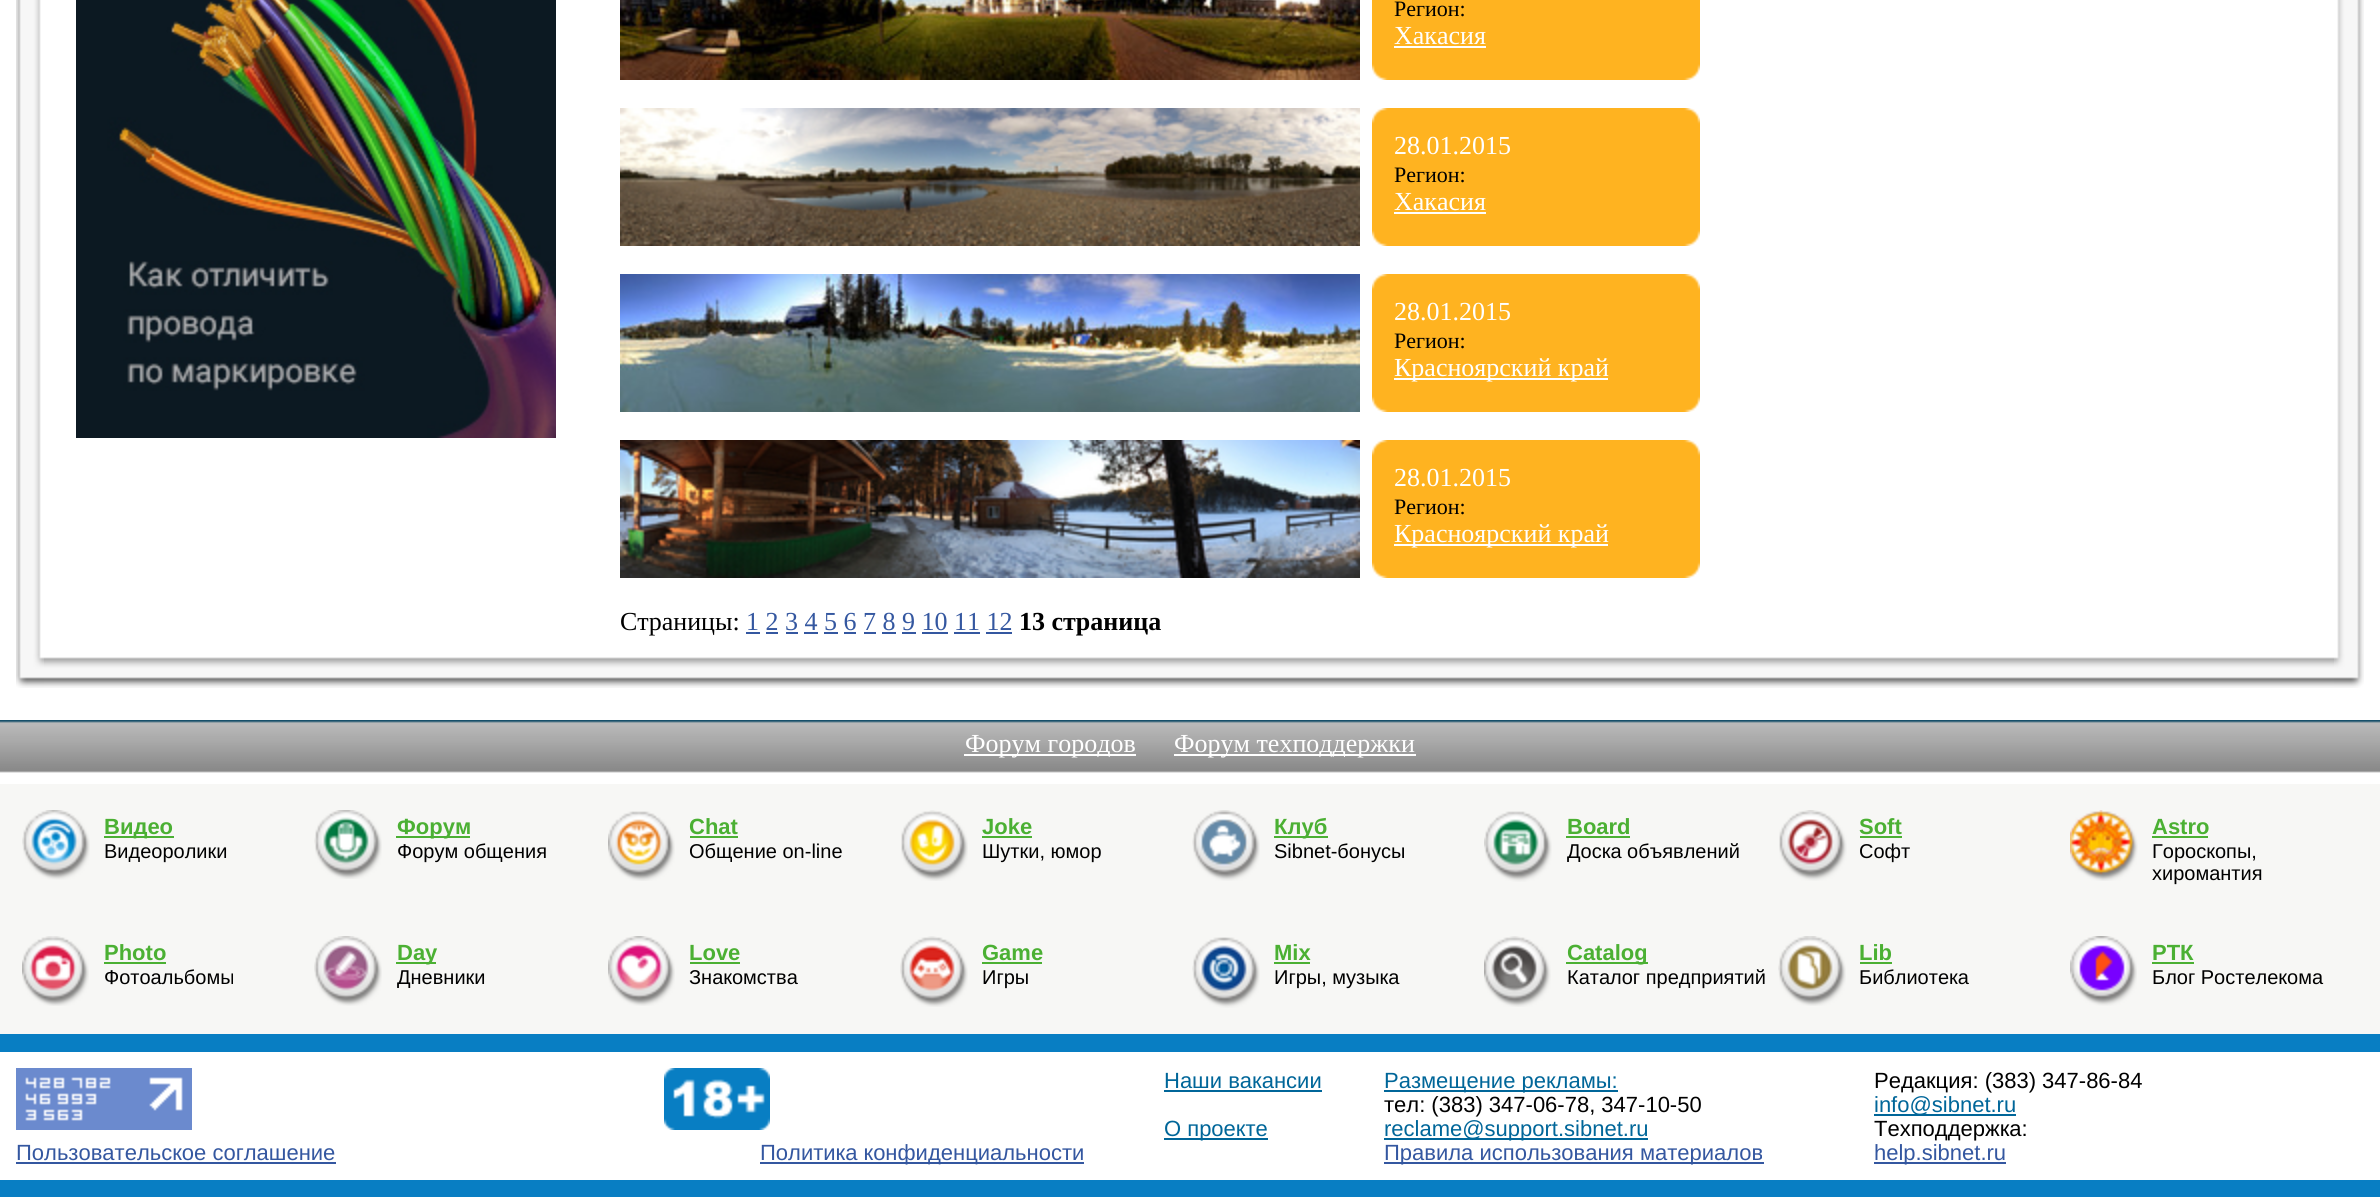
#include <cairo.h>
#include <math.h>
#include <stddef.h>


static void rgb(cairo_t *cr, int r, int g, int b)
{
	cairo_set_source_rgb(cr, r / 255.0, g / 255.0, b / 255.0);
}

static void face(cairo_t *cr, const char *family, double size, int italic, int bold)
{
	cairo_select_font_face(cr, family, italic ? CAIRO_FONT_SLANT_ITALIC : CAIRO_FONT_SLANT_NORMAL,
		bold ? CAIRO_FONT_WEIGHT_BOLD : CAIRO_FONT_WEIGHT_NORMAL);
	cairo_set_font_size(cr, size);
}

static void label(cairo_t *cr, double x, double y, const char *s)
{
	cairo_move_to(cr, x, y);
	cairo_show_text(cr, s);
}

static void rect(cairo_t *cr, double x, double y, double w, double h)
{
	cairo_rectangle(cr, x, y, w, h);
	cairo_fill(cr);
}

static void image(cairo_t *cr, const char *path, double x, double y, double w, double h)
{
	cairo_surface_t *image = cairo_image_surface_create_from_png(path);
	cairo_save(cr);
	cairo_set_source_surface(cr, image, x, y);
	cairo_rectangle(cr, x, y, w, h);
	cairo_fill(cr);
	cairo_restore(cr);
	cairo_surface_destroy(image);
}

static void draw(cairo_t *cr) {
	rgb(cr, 255, 255, 255);
	cairo_paint(cr);
	image(cr, "image0.png", 16, 0, 25, 654);
	image(cr, "image1.png", 76, 0, 480, 438);
	image(cr, "image2.png", 620, 0, 740, 80);
	rgb(cr, 255, 179, 32);
	rect(cr, 1372, 0, 328, 64);
	image(cr, "image3.png", 1372, 64, 328, 16);
	face(cr, "Liberation Serif", 22, 0, 0);
	rgb(cr, 0, 0, 0);
	label(cr, 1394, 16, "Регион:");
	face(cr, "Liberation Serif", 26, 0, 0);
	rgb(cr, 255, 255, 255);
	label(cr, 1394, 44, "Хакасия");
	rect(cr, 1394, 46, 92, 2);
	image(cr, "image4.png", 620, 108, 740, 138);
	image(cr, "image5.png", 1372, 108, 328, 138);
	label(cr, 1394, 154, "28.01.2015");
	face(cr, "Liberation Serif", 22, 0, 0);
	rgb(cr, 0, 0, 0);
	label(cr, 1394, 182, "Регион:");
	face(cr, "Liberation Serif", 26, 0, 0);
	rgb(cr, 255, 255, 255);
	label(cr, 1394, 210, "Хакасия");
	rect(cr, 1394, 212, 92, 2);
	image(cr, "image6.png", 620, 274, 740, 138);
	image(cr, "image5.png", 1372, 274, 328, 138);
	label(cr, 1394, 320, "28.01.2015");
	face(cr, "Liberation Serif", 22, 0, 0);
	rgb(cr, 0, 0, 0);
	label(cr, 1394, 348, "Регион:");
	rgb(cr, 255, 255, 255);
	rect(cr, 1394, 378, 214, 2);
	face(cr, "Liberation Serif", 26, 0, 0);
	label(cr, 1394, 376, "Красноярский край");
	image(cr, "image7.png", 620, 440, 740, 138);
	image(cr, "image5.png", 1372, 440, 328, 138);
	label(cr, 1394, 486, "28.01.2015");
	face(cr, "Liberation Serif", 22, 0, 0);
	rgb(cr, 0, 0, 0);
	label(cr, 1394, 514, "Регион:");
	rgb(cr, 255, 255, 255);
	rect(cr, 1394, 544, 214, 2);
	face(cr, "Liberation Serif", 26, 0, 0);
	label(cr, 1394, 542, "Красноярский край");
	rgb(cr, 0, 0, 0);
	label(cr, 620, 630, "Страницы:");
	rgb(cr, 52, 87, 160);
	label(cr, 746, 630, "1 2 3 4 5 6 7 8 9 10 11 12");
	rect(cr, 746, 632, 14, 2);
	face(cr, "Liberation Serif", 26, 0, 1);
	rgb(cr, 0, 0, 0);
	label(cr, 1019, 630, "13 страница");
	rgb(cr, 52, 87, 160);
	rect(cr, 766, 632, 12, 2);
	rect(cr, 786, 632, 12, 2);
	rect(cr, 804, 632, 14, 2);
	rect(cr, 824, 632, 14, 2);
	rect(cr, 844, 632, 12, 2);
	rect(cr, 864, 632, 12, 2);
	rect(cr, 882, 632, 14, 2);
	rect(cr, 902, 632, 14, 2);
	rect(cr, 922, 632, 26, 2);
	rect(cr, 954, 632, 26, 2);
	rect(cr, 986, 632, 26, 2);
	image(cr, "image8.png", 2337, 0, 27, 654);
	image(cr, "image9.png", 16, 654, 28, 34);
	image(cr, "image10.png", 44, 657, 2290, 31);
	image(cr, "image11.png", 2334, 654, 30, 34);
	image(cr, "image12.png", 0, 720, 2380, 53);
	rgb(cr, 255, 255, 255);
	rect(cr, 964, 754, 172, 2);
	face(cr, "Liberation Serif", 26, 0, 0);
	label(cr, 965, 752, "Форум городов");
	rect(cr, 1174, 754, 242, 2);
	label(cr, 1174, 752, "Форум техподдержки");
	rgb(cr, 247, 247, 245);
	rect(cr, 0, 784, 2380, 250);
	image(cr, "image13.png", 22, 810, 68, 70);
	rgb(cr, 75, 176, 51);
	rect(cr, 104, 836, 70, 2);
	face(cr, "Liberation Sans", 22, 0, 1);
	label(cr, 104, 834, "Видео");
	face(cr, "Liberation Sans", 20, 0, 0);
	rgb(cr, 0, 0, 0);
	label(cr, 104, 858, "Видеоролики");
	image(cr, "image14.png", 314, 810, 68, 69);
	rgb(cr, 75, 176, 51);
	rect(cr, 396, 836, 74, 2);
	face(cr, "Liberation Sans", 22, 0, 1);
	label(cr, 397, 834, "Форум");
	face(cr, "Liberation Sans", 20, 0, 0);
	rgb(cr, 0, 0, 0);
	label(cr, 397, 858, "Форум общения");
	image(cr, "image15.png", 608, 811, 67, 70);
	face(cr, "Liberation Sans", 22, 0, 1);
	rgb(cr, 75, 176, 51);
	label(cr, 689, 834, "Chat");
	rect(cr, 690, 836, 48, 2);
	face(cr, "Liberation Sans", 20, 0, 0);
	rgb(cr, 0, 0, 0);
	label(cr, 689, 858, "Общение on-line");
	image(cr, "image16.png", 901, 810, 67, 71);
	face(cr, "Liberation Sans", 22, 0, 1);
	rgb(cr, 75, 176, 51);
	label(cr, 982, 834, "Joke");
	rect(cr, 982, 836, 50, 2);
	face(cr, "Liberation Sans", 20, 0, 0);
	rgb(cr, 0, 0, 0);
	label(cr, 982, 858, "Шутки, юмор");
	image(cr, "image17.png", 1192, 810, 68, 71);
	rgb(cr, 75, 176, 51);
	rect(cr, 1274, 836, 54, 2);
	face(cr, "Liberation Sans", 22, 0, 1);
	label(cr, 1274, 834, "Клуб");
	face(cr, "Liberation Sans", 20, 0, 0);
	rgb(cr, 0, 0, 0);
	label(cr, 1274, 858, "Sibnet-бонусы");
	image(cr, "image18.png", 1484, 811, 68, 71);
	face(cr, "Liberation Sans", 22, 0, 1);
	rgb(cr, 75, 176, 51);
	label(cr, 1567, 834, "Board");
	rect(cr, 1566, 836, 64, 2);
	face(cr, "Liberation Sans", 20, 0, 0);
	rgb(cr, 0, 0, 0);
	label(cr, 1567, 858, "Доска объявлений");
	image(cr, "image19.png", 1779, 810, 68, 71);
	face(cr, "Liberation Sans", 22, 0, 1);
	rgb(cr, 75, 176, 51);
	label(cr, 1859, 834, "Soft");
	rect(cr, 1860, 836, 42, 2);
	face(cr, "Liberation Sans", 20, 0, 0);
	rgb(cr, 0, 0, 0);
	label(cr, 1859, 858, "Софт");
	image(cr, "image20.png", 2070, 810, 68, 71);
	face(cr, "Liberation Sans", 22, 0, 1);
	rgb(cr, 75, 176, 51);
	label(cr, 2152, 834, "Astro");
	rect(cr, 2152, 836, 56, 2);
	face(cr, "Liberation Sans", 20, 0, 0);
	rgb(cr, 0, 0, 0);
	label(cr, 2152, 858, "Гороскопы,");
	label(cr, 2152, 880, "хиромантия");
	image(cr, "image21.png", 22, 936, 67, 70);
	face(cr, "Liberation Sans", 22, 0, 1);
	rgb(cr, 75, 176, 51);
	label(cr, 104, 960, "Photo");
	rect(cr, 104, 962, 62, 2);
	face(cr, "Liberation Sans", 20, 0, 0);
	rgb(cr, 0, 0, 0);
	label(cr, 104, 984, "Фотоальбомы");
	image(cr, "image22.png", 314, 936, 68, 70);
	rgb(cr, 75, 176, 51);
	rect(cr, 396, 962, 40, 2);
	face(cr, "Liberation Sans", 22, 0, 1);
	label(cr, 397, 960, "Day");
	face(cr, "Liberation Sans", 20, 0, 0);
	rgb(cr, 0, 0, 0);
	label(cr, 397, 984, "Дневники");
	image(cr, "image23.png", 608, 936, 67, 70);
	face(cr, "Liberation Sans", 22, 0, 1);
	rgb(cr, 75, 176, 51);
	label(cr, 689, 960, "Love");
	rect(cr, 690, 962, 50, 2);
	face(cr, "Liberation Sans", 20, 0, 0);
	rgb(cr, 0, 0, 0);
	label(cr, 689, 984, "Знакомства");
	image(cr, "image24.png", 900, 936, 68, 71);
	face(cr, "Liberation Sans", 22, 0, 1);
	rgb(cr, 75, 176, 51);
	label(cr, 982, 960, "Game");
	rect(cr, 982, 962, 60, 2);
	face(cr, "Liberation Sans", 20, 0, 0);
	rgb(cr, 0, 0, 0);
	label(cr, 982, 984, "Игры");
	image(cr, "image25.png", 1192, 937, 68, 71);
	face(cr, "Liberation Sans", 22, 0, 1);
	rgb(cr, 75, 176, 51);
	label(cr, 1274, 960, "Mix");
	rect(cr, 1274, 962, 36, 2);
	face(cr, "Liberation Sans", 20, 0, 0);
	rgb(cr, 0, 0, 0);
	label(cr, 1274, 984, "Игры, музыка");
	image(cr, "image26.png", 1484, 936, 67, 71);
	rgb(cr, 75, 176, 51);
	rect(cr, 1566, 962, 82, 2);
	face(cr, "Liberation Sans", 22, 0, 1);
	label(cr, 1567, 960, "Catalog");
	face(cr, "Liberation Sans", 20, 0, 0);
	rgb(cr, 0, 0, 0);
	label(cr, 1567, 984, "Каталог предприятий");
	image(cr, "image27.png", 1778, 936, 68, 70);
	face(cr, "Liberation Sans", 22, 0, 1);
	rgb(cr, 75, 176, 51);
	label(cr, 1859, 960, "Lib");
	rect(cr, 1860, 962, 32, 2);
	face(cr, "Liberation Sans", 20, 0, 0);
	rgb(cr, 0, 0, 0);
	label(cr, 1859, 984, "Библиотека");
	image(cr, "image28.png", 2070, 936, 67, 70);
	face(cr, "Liberation Sans", 22, 0, 1);
	rgb(cr, 75, 176, 51);
	label(cr, 2152, 960, "РТК");
	rect(cr, 2152, 962, 42, 2);
	face(cr, "Liberation Sans", 20, 0, 0);
	rgb(cr, 0, 0, 0);
	label(cr, 2152, 984, "Блог Ростелекома");
	rgb(cr, 8, 126, 195);
	rect(cr, 0, 1034, 2380, 18);
	rect(cr, 0, 1180, 2380, 17);
	image(cr, "image29.png", 16, 1068, 176, 62);
	image(cr, "image30.png", 664, 1068, 106, 62);
	face(cr, "Liberation Sans", 22, 0, 0);
	rgb(cr, 0, 102, 153);
	label(cr, 1164, 1088, "Наши вакансии");
	rect(cr, 1164, 1090, 158, 2);
	rect(cr, 1164, 1138, 104, 2);
	label(cr, 1164, 1136, "О проекте");
	rect(cr, 1384, 1090, 234, 2);
	label(cr, 1384, 1088, "Размещение рекламы:");
	rgb(cr, 0, 0, 0);
	label(cr, 1384, 1112, "тел: (383) 347-06-78, 347-10-50");
	rgb(cr, 0, 102, 153);
	rect(cr, 1384, 1138, 264, 2);
	label(cr, 1384, 1136, "reclame@support.sibnet.ru");
	rgb(cr, 52, 87, 160);
	rect(cr, 1384, 1162, 380, 2);
	label(cr, 1384, 1160, "Правила использования материалов");
	rgb(cr, 0, 0, 0);
	label(cr, 1874, 1088, "Редакция: (383) 347-86-84");
	rgb(cr, 0, 102, 153);
	rect(cr, 1874, 1114, 142, 2);
	label(cr, 1874, 1112, "info@sibnet.ru");
	rgb(cr, 0, 0, 0);
	label(cr, 1874, 1136, "Техподдержка:");
	rgb(cr, 52, 87, 160);
	rect(cr, 1874, 1162, 132, 2);
	label(cr, 1874, 1160, "help.sibnet.ru");
	label(cr, 16, 1160, "Пользовательское соглашение");
	rect(cr, 16, 1162, 320, 2);
	rect(cr, 760, 1162, 324, 2);
	label(cr, 760, 1160, "Политика конфиденциальности");
}

int main(void) {
	cairo_surface_t *surface = cairo_image_surface_create(CAIRO_FORMAT_RGB24, 2380, 1197);
	cairo_t *cr = cairo_create(surface);
	cairo_font_options_t *options = cairo_font_options_create();
	cairo_font_options_set_hint_metrics(options, CAIRO_HINT_METRICS_OFF);
	cairo_font_options_set_hint_style(options, CAIRO_HINT_STYLE_NONE);
	cairo_set_font_options(cr, options);
	cairo_set_miter_limit(cr, 4);
	draw(cr);
	cairo_surface_write_to_png(surface, "render.png");
	cairo_font_options_destroy(options);
	cairo_destroy(cr);
	cairo_surface_destroy(surface);
	return 0;
}
